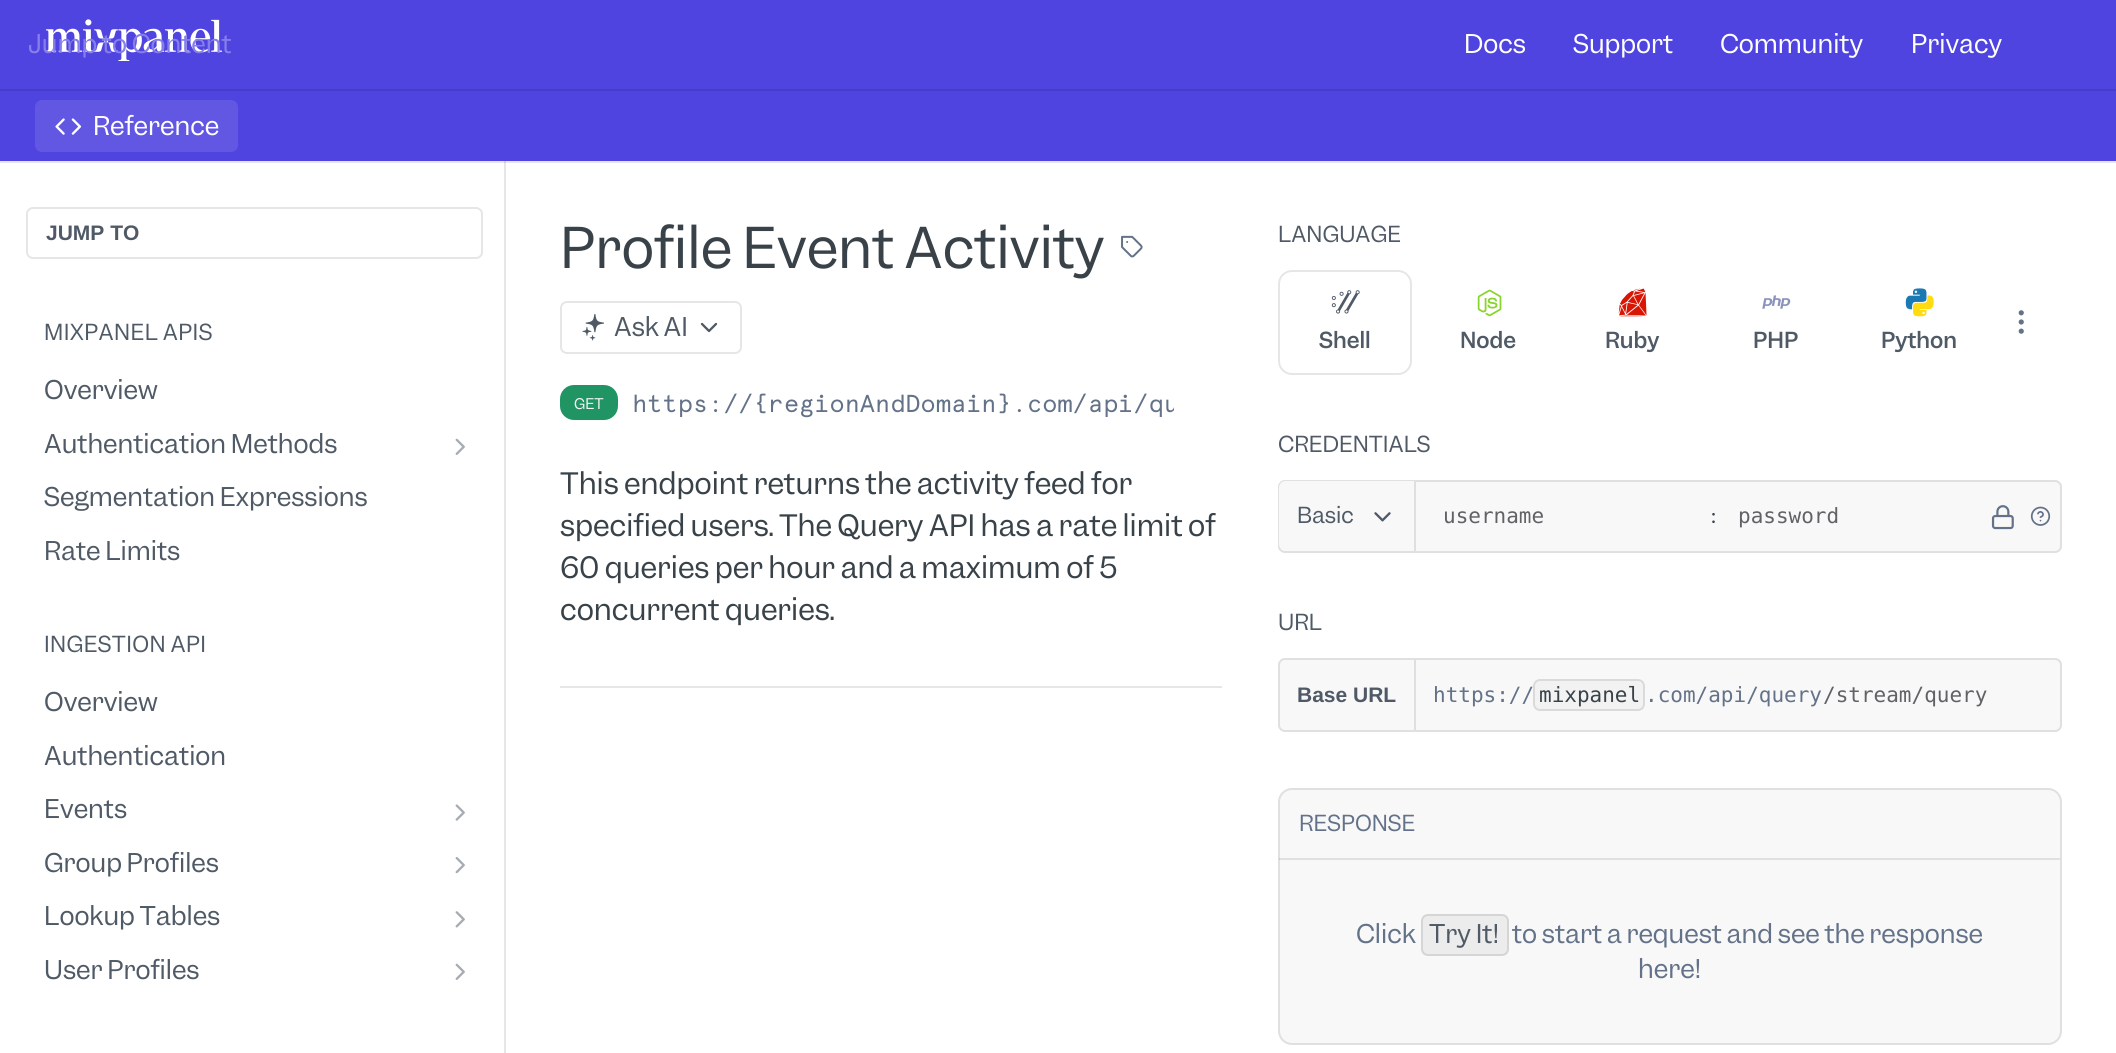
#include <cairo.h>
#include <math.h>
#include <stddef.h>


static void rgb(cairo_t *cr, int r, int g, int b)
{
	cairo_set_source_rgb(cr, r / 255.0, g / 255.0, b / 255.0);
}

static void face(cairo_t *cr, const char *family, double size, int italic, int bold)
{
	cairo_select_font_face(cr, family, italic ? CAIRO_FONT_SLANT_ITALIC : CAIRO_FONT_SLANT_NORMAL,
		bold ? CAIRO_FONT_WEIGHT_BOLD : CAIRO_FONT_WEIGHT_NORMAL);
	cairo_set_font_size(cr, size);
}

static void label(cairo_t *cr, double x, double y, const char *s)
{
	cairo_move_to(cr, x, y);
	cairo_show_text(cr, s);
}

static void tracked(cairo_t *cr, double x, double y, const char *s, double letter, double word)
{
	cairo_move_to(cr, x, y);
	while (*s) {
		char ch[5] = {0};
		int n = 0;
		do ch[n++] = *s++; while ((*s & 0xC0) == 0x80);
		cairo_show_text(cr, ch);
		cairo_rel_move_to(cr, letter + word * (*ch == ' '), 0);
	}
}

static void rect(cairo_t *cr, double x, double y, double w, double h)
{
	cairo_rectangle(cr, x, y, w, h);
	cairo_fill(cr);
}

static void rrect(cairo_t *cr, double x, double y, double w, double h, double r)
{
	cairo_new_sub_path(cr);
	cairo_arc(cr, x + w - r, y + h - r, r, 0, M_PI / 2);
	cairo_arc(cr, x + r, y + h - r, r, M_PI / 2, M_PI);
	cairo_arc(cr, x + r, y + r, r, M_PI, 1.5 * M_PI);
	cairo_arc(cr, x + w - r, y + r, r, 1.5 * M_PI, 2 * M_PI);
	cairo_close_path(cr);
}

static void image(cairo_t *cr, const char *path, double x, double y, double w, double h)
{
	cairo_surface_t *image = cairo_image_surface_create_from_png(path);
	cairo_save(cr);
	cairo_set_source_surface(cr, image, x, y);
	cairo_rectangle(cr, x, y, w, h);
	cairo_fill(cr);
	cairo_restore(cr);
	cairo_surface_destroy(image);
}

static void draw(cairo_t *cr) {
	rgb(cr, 255, 255, 255);
	cairo_paint(cr);
	rgb(cr, 230, 230, 230);
	cairo_new_path(cr);
	cairo_move_to(cr, 2, 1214);
	cairo_line_to(cr, 2, 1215);
	cairo_line_to(cr, 506, 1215);
	cairo_line_to(cr, 506, 161);
	cairo_line_to(cr, 504, 161);
	cairo_line_to(cr, 504, 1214);
	cairo_close_path(cr);
	cairo_fill(cr);
	cairo_set_source_rgba(cr, 0, 0, 0, 0.1);
	cairo_new_path(cr);
	cairo_move_to(cr, 0, 161);
	cairo_line_to(cr, 0, 163);
	cairo_line_to(cr, 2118, 163);
	cairo_line_to(cr, 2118, 2);
	cairo_line_to(cr, 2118, 161);
	cairo_close_path(cr);
	cairo_fill(cr);
	rgb(cr, 79, 68, 224);
	rect(cr, 0, 0, 2116, 161);
	rgb(cr, 71, 61, 202);
	rect(cr, 0, 89, 2116, 2);
	image(cr, "image0.png", 46, 19, 176, 42);
	face(cr, "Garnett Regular", 24.5, 0, 0);
	rgb(cr, 134, 126, 234);
	label(cr, 28, 53, "Jump to Content");
	rgb(cr, 255, 255, 255);
	label(cr, 1464, 53, "Docs");
	label(cr, 1573, 53, "Support");
	label(cr, 1720, 53, "Community");
	label(cr, 1911, 53, "Privacy");
	rgb(cr, 97, 87, 227);
	rrect(cr, 35, 100, 203, 52, 7);
	cairo_fill(cr);
	image(cr, "image1.png", 55, 118, 27, 17);
	rgb(cr, 255, 255, 255);
	label(cr, 93, 135, "Reference");
	rrect(cr, 27, 208, 455, 50, 6);
	rgb(cr, 230, 230, 230);
	cairo_stroke(cr);
	face(cr, "Liberation Sans", 21, 0, 1);
	rgb(cr, 79, 90, 102);
	label(cr, 46, 240, "JUMP TO");
	face(cr, "Garnett Regular", 21, 0, 0);
	tracked(cr, 44, 340, "MIXPANEL APIS", 0.4, 0);
	face(cr, "Garnett Regular", 24.5, 0, 0);
	label(cr, 44, 399, "Overview");
	label(cr, 44, 453, "Authentication Methods");
	image(cr, "image2.png", 455, 438, 10, 17);
	label(cr, 44, 506, "Segmentation Expressions");
	label(cr, 44, 560, "Rate Limits");
	face(cr, "Garnett Regular", 21, 0, 0);
	tracked(cr, 44, 652, "INGESTION API", 0.4, 0);
	face(cr, "Garnett Regular", 24.5, 0, 0);
	label(cr, 44, 711, "Overview");
	label(cr, 44, 765, "Authentication");
	label(cr, 44, 818, "Events");
	image(cr, "image3.png", 455, 804, 10, 17);
	label(cr, 44, 872, "Group Profiles");
	image(cr, "image4.png", 455, 857, 10, 17);
	label(cr, 44, 925, "Lookup Tables");
	image(cr, "image5.png", 455, 911, 10, 17);
	label(cr, 44, 979, "User Profiles");
	image(cr, "image2.png", 455, 963, 10, 17);
	rgb(cr, 230, 230, 230);
	rect(cr, 560, 686, 662, 2);
	face(cr, "Garnett Regular", 53.25, 0, 0);
	rgb(cr, 56, 66, 72);
	label(cr, 560, 268, "Profile Event Activity");
	image(cr, "image6.png", 1121, 235, 22, 23);
	rrect(cr, 561, 302, 180, 51, 6);
	rgb(cr, 230, 230, 230);
	cairo_stroke(cr);
	image(cr, "image7.png", 582, 313, 22, 28);
	face(cr, "Garnett Regular", 24.5, 0, 0);
	rgb(cr, 79, 90, 102);
	label(cr, 614, 336, "Ask AI");
	cairo_new_path(cr);
	cairo_move_to(cr, 702, 324);
	cairo_line_to(cr, 709, 331);
	cairo_line_to(cr, 716, 324);
	cairo_set_line_width(cr, 2.3);
	cairo_set_line_cap(cr, CAIRO_LINE_CAP_ROUND);
	cairo_set_line_join(cr, CAIRO_LINE_JOIN_ROUND);
	cairo_stroke(cr);
	rgb(cr, 33, 148, 100);
	rrect(cr, 560, 385, 58, 35, 14);
	cairo_fill(cr);
	face(cr, "Garnett Regular", 14, 0, 0);
	rgb(cr, 246, 246, 246);
	label(cr, 574, 409, "GET");
	cairo_save(cr);
	cairo_rectangle(cr, 632, 385, 542, 35);
	cairo_clip(cr);
	face(cr, "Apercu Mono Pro", 24.5, 0, 0);
	rgb(cr, 99, 114, 136);
	label(cr, 632, 412, "https://{regionAndDomain}.com/api/qu");
	cairo_restore(cr);
	face(cr, "Garnett Regular", 28, 0, 0);
	rgb(cr, 56, 66, 72);
	label(cr, 560, 494, "This endpoint returns the activity feed for");
	label(cr, 560, 536, "specified users. The Query API has a rate limit of");
	label(cr, 560, 578, "60 queries per hour and a maximum of 5");
	label(cr, 560, 620, "concurrent queries.");
	face(cr, "Garnett Regular", 21, 0, 0);
	rgb(cr, 79, 90, 102);
	label(cr, 1278, 242, "LANGUAGE");
	image(cr, "image8.png", 2018, 310, 6, 24);
	rrect(cr, 1279, 271, 132, 103, 13);
	rgb(cr, 230, 230, 230);
	cairo_set_line_width(cr, 2);
	cairo_set_line_cap(cr, CAIRO_LINE_CAP_BUTT);
	cairo_set_line_join(cr, CAIRO_LINE_JOIN_MITER);
	cairo_stroke(cr);
	image(cr, "image9.png", 1331, 290, 29, 24);
	face(cr, "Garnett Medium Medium", 21, 0, 0);
	rgb(cr, 79, 90, 102);
	label(cr, 1319, 348, "Shell");
	image(cr, "image10.png", 1477, 289, 25, 28);
	label(cr, 1460, 348, "Node");
	image(cr, "image11.png", 1618, 288, 29, 29);
	label(cr, 1605, 348, "Ruby");
	image(cr, "image12.png", 1762, 295, 29, 14);
	label(cr, 1753, 348, "PHP");
	image(cr, "image13.png", 1905, 288, 22, 22);
	image(cr, "image14.png", 1913, 295, 21, 22);
	label(cr, 1881, 348, "Python");
	face(cr, "Garnett Regular", 21, 0, 0);
	label(cr, 1278, 452, "CREDENTIALS");
	rgb(cr, 248, 248, 248);
	rrect(cr, 1278, 480, 784, 73, 7);
	cairo_fill(cr);
	rrect(cr, 1279, 481, 782, 71, 6);
	cairo_set_source_rgba(cr, 0, 0, 0, 0.1);
	cairo_stroke(cr);
	rgb(cr, 248, 248, 248);
	cairo_new_path(cr);
	cairo_move_to(cr, 1286, 481);
	cairo_line_to(cr, 1416, 481);
	cairo_line_to(cr, 1416, 551);
	cairo_line_to(cr, 1286, 551);
	cairo_curve_to(cr, 1282, 551, 1279, 548, 1279, 544);
	cairo_line_to(cr, 1279, 488);
	cairo_curve_to(cr, 1279, 484, 1282, 481, 1286, 481);
	cairo_close_path(cr);
	cairo_fill(cr);
	rgb(cr, 223, 223, 223);
	rect(cr, 1414, 481, 2, 70);
	rgb(cr, 79, 90, 102);
	label(cr, 1297, 523, "Basic");
	image(cr, "image15.png", 1374, 512, 17, 10);
	face(cr, "DejaVu Sans Mono", 21, 0, 0);
	rgb(cr, 98, 98, 102);
	label(cr, 1443, 523, "username");
	face(cr, "Apercu Mono Pro", 21, 0, 0);
	rgb(cr, 56, 66, 72);
	label(cr, 1707, 523, ":");
	face(cr, "DejaVu Sans Mono", 21, 0, 0);
	rgb(cr, 98, 98, 102);
	label(cr, 1738, 523, "password");
	image(cr, "image16.png", 1991, 505, 23, 25);
	image(cr, "image17.png", 2030, 506, 21, 20);
	face(cr, "Garnett Regular", 21, 0, 0);
	rgb(cr, 79, 90, 102);
	label(cr, 1278, 630, "URL");
	rgb(cr, 248, 248, 248);
	rrect(cr, 1278, 658, 784, 74, 7);
	cairo_fill(cr);
	rrect(cr, 1279, 659, 782, 72, 6);
	cairo_set_source_rgba(cr, 0, 0, 0, 0.1);
	cairo_stroke(cr);
	rgb(cr, 223, 223, 223);
	rect(cr, 1414, 660, 2, 70);
	face(cr, "Liberation Sans", 21, 0, 1);
	rgb(cr, 79, 90, 102);
	label(cr, 1297, 702, "Base URL");
	face(cr, "DejaVu Sans Mono", 21, 0, 0);
	rgb(cr, 99, 114, 136);
	label(cr, 1433, 702, "https://");
	rgb(cr, 242, 242, 242);
	rrect(cr, 1533, 679, 112, 32, 7);
	cairo_fill(cr);
	rrect(cr, 1534, 680, 110, 30, 6);
	cairo_set_source_rgba(cr, 0, 0, 0, 0.1);
	cairo_stroke(cr);
	rgb(cr, 56, 66, 72);
	label(cr, 1539, 702, "mixpanel");
	rgb(cr, 99, 114, 136);
	label(cr, 1645, 702, ".com/api/query");
	rgb(cr, 98, 98, 102);
	label(cr, 1823, 702, "/stream/query");
	rgb(cr, 248, 248, 248);
	rrect(cr, 1278, 788, 784, 257, 14);
	cairo_fill(cr);
	rrect(cr, 1279, 789, 782, 255, 13);
	cairo_set_source_rgba(cr, 0, 0, 0, 0.1);
	cairo_stroke(cr);
	rect(cr, 1279, 858, 781, 2);
	cairo_set_source_rgba(cr, 1, 1, 1, 0.05);
	rect(cr, 1279, 859, 1, 1);
	face(cr, "Garnett Regular", 21, 0, 0);
	rgb(cr, 99, 114, 136);
	label(cr, 1299, 831, "RESPONSE");
	face(cr, "Garnett Regular", 24.5, 0, 0);
	label(cr, 1356, 943, "Click");
	rgb(cr, 236, 236, 236);
	rrect(cr, 1421, 914, 88, 42, 7);
	cairo_fill(cr);
	rrect(cr, 1422, 915, 86, 40, 6);
	cairo_set_source_rgba(cr, 0, 0, 0, 0.1);
	cairo_stroke(cr);
	rgb(cr, 79, 90, 102);
	label(cr, 1429, 943, "Try It!");
	rgb(cr, 99, 114, 136);
	label(cr, 1512, 943, "to start a request and see the response");
	label(cr, 1638, 978, "here!");
}

int main(void) {
	cairo_surface_t *surface = cairo_image_surface_create(CAIRO_FORMAT_RGB24, 2116, 1053);
	cairo_t *cr = cairo_create(surface);
	cairo_font_options_t *options = cairo_font_options_create();
	cairo_font_options_set_hint_metrics(options, CAIRO_HINT_METRICS_OFF);
	cairo_font_options_set_hint_style(options, CAIRO_HINT_STYLE_NONE);
	cairo_set_font_options(cr, options);
	cairo_set_miter_limit(cr, 4);
	draw(cr);
	cairo_surface_write_to_png(surface, "render.png");
	cairo_font_options_destroy(options);
	cairo_destroy(cr);
	cairo_surface_destroy(surface);
	return 0;
}
